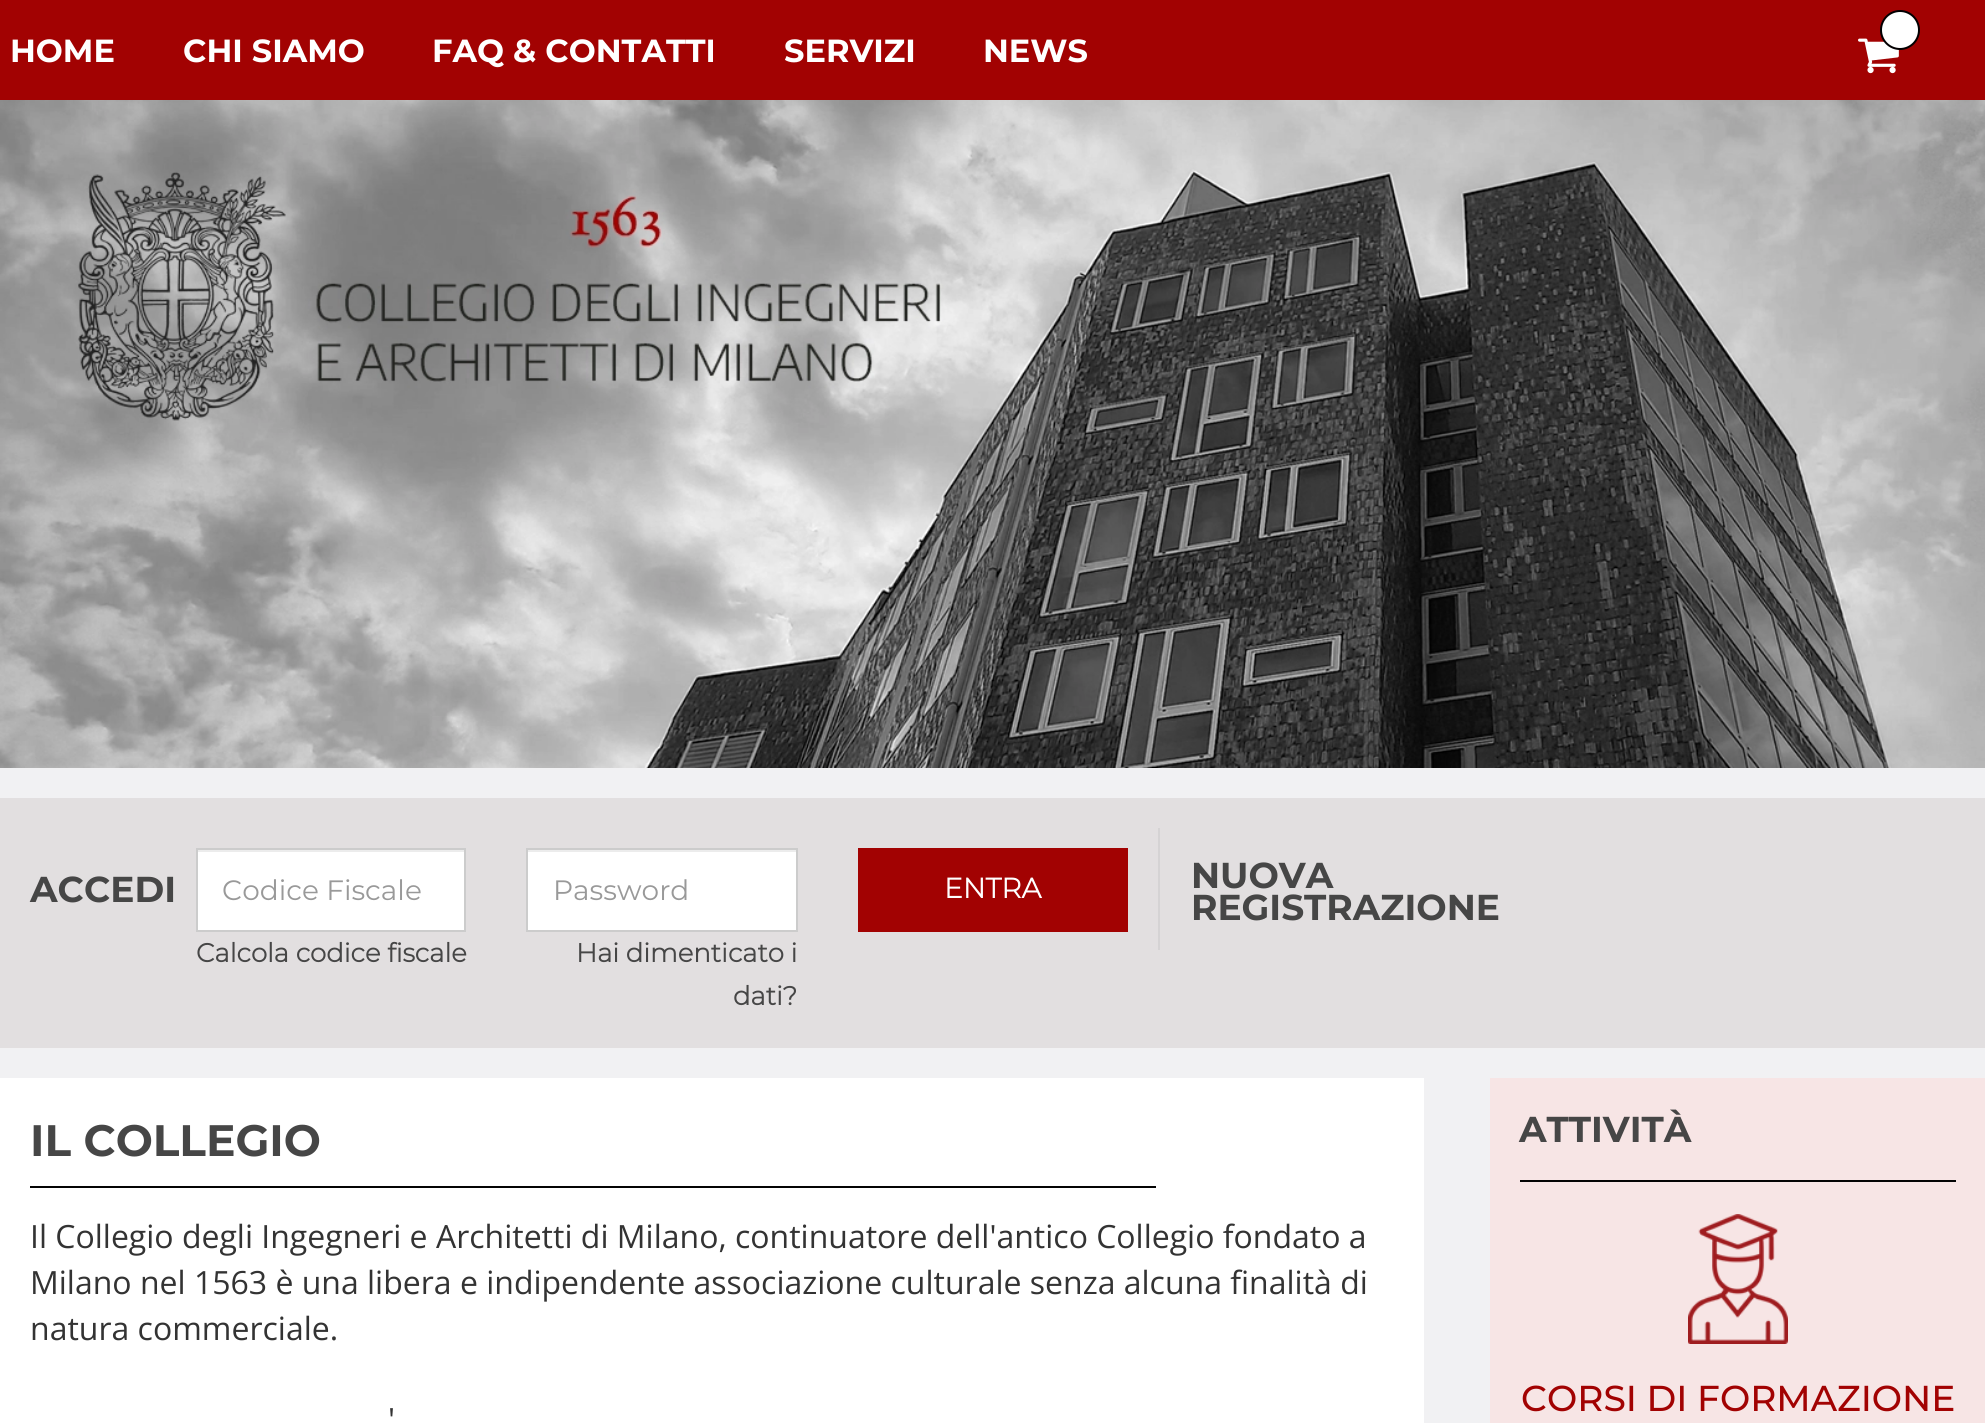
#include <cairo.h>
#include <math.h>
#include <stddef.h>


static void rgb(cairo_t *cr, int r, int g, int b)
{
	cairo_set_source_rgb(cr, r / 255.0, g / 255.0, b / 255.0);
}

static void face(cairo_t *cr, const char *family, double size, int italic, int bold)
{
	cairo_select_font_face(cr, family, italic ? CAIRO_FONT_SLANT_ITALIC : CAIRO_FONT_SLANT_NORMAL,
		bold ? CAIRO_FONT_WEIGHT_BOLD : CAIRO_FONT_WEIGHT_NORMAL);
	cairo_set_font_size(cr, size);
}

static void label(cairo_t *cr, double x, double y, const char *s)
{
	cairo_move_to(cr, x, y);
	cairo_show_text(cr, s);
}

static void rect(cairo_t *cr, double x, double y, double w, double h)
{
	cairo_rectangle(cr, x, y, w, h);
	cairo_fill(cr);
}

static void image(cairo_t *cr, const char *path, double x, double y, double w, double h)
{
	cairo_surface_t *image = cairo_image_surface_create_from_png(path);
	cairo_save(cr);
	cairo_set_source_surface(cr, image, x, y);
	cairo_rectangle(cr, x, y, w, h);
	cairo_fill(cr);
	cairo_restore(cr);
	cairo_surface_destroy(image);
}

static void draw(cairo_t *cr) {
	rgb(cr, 241, 241, 243);
	cairo_paint(cr);
	rgb(cr, 162, 2, 2);
	rect(cr, 0, 0, 1985, 100);
	image(cr, "image0.png", 0, 100, 1985, 668);
	face(cr, "Montserrat", 32, 0, 1);
	rgb(cr, 255, 255, 255);
	label(cr, 10, 62, "HOME");
	label(cr, 183, 62, "CHI SIAMO");
	label(cr, 432, 62, "FAQ & CONTATTI");
	label(cr, 784, 62, "SERVIZI");
	label(cr, 983, 62, "NEWS");
	image(cr, "image1.png", 1858, 38, 41, 36);
	cairo_arc(cr, 1900, 30, 19, 0, 2 * M_PI);
	cairo_fill_preserve(cr);
	rgb(cr, 3, 0, 1);
	cairo_stroke(cr);
	rgb(cr, 226, 223, 224);
	rect(cr, 0, 798, 1985, 250);
	face(cr, "Montserrat", 36, 0, 1);
	rgb(cr, 70, 70, 70);
	label(cr, 30, 902, "ACCEDI");
	rgb(cr, 255, 255, 255);
	rect(cr, 198, 852, 266, 78);
	rgb(cr, 236, 236, 236);
	rect(cr, 198, 850, 266, 2);
	cairo_rectangle(cr, 197, 849, 268, 82);
	rgb(cr, 204, 204, 204);
	cairo_stroke(cr);
	face(cr, "Montserrat", 28, 0, 0);
	rgb(cr, 153, 153, 153);
	label(cr, 222, 900, "Codice Fiscale");
	face(cr, "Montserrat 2", 26, 0, 1);
	rgb(cr, 70, 70, 70);
	label(cr, 196, 962, "Calcola codice fiscale");
	rgb(cr, 255, 255, 255);
	rect(cr, 528, 852, 268, 78);
	rgb(cr, 236, 236, 236);
	rect(cr, 528, 850, 268, 2);
	cairo_rectangle(cr, 527, 849, 270, 82);
	rgb(cr, 204, 204, 204);
	cairo_stroke(cr);
	face(cr, "Montserrat", 28, 0, 0);
	rgb(cr, 153, 153, 153);
	label(cr, 553, 900, "Password");
	face(cr, "Montserrat 2", 26, 0, 1);
	rgb(cr, 70, 70, 70);
	label(cr, 576, 962, "Hai dimenticato i");
	label(cr, 733, 1005, "dati?");
	rgb(cr, 162, 2, 2);
	rect(cr, 858, 848, 270, 84);
	face(cr, "Montserrat 2", 28, 0, 1);
	rgb(cr, 255, 255, 255);
	label(cr, 944, 898, "ENTRA");
	rgb(cr, 213, 211, 212);
	rect(cr, 1158, 828, 2, 122);
	face(cr, "Montserrat", 36, 0, 1);
	rgb(cr, 70, 70, 70);
	label(cr, 1191, 888, "NUOVA");
	label(cr, 1191, 920, "REGISTRAZIONE");
	rgb(cr, 255, 255, 255);
	rect(cr, 0, 1078, 1424, 345);
	face(cr, "Montserrat", 44, 0, 1);
	rgb(cr, 70, 70, 70);
	label(cr, 30, 1156, "IL COLLEGIO");
	rgb(cr, 4, 4, 4);
	rect(cr, 30, 1186, 1126, 2);
	face(cr, "Open Sans", 32, 0, 0);
	rgb(cr, 51, 51, 51);
	label(cr, 30, 1248, "Il Collegio degli Ingegneri e Architetti di Milano, continuatore dell'antico Collegio fondato a");
	label(cr, 30, 1294, "Milano nel 1563 è una libera e indipendente associazione culturale senza alcuna finalità di");
	label(cr, 30, 1340, "natura commerciale.");
	label(cr, 388, 1431, "'");
	rgb(cr, 247, 229, 229);
	rect(cr, 1490, 1078, 495, 345);
	face(cr, "Montserrat", 36, 0, 1);
	rgb(cr, 70, 70, 70);
	label(cr, 1519, 1142, "ATTIVITÀ");
	rgb(cr, 4, 4, 4);
	rect(cr, 1520, 1180, 436, 2);
	image(cr, "image2.png", 1688, 1214, 100, 130);
	face(cr, "Montserrat Medium", 36, 0, 0);
	rgb(cr, 162, 2, 2);
	label(cr, 1521, 1411, "CORSI DI FORMAZIONE");
}

int main(void) {
	cairo_surface_t *surface = cairo_image_surface_create(CAIRO_FORMAT_RGB24, 1985, 1423);
	cairo_t *cr = cairo_create(surface);
	cairo_font_options_t *options = cairo_font_options_create();
	cairo_font_options_set_hint_metrics(options, CAIRO_HINT_METRICS_OFF);
	cairo_font_options_set_hint_style(options, CAIRO_HINT_STYLE_NONE);
	cairo_set_font_options(cr, options);
	cairo_set_miter_limit(cr, 4);
	draw(cr);
	cairo_surface_write_to_png(surface, "render.png");
	cairo_font_options_destroy(options);
	cairo_destroy(cr);
	cairo_surface_destroy(surface);
	return 0;
}
